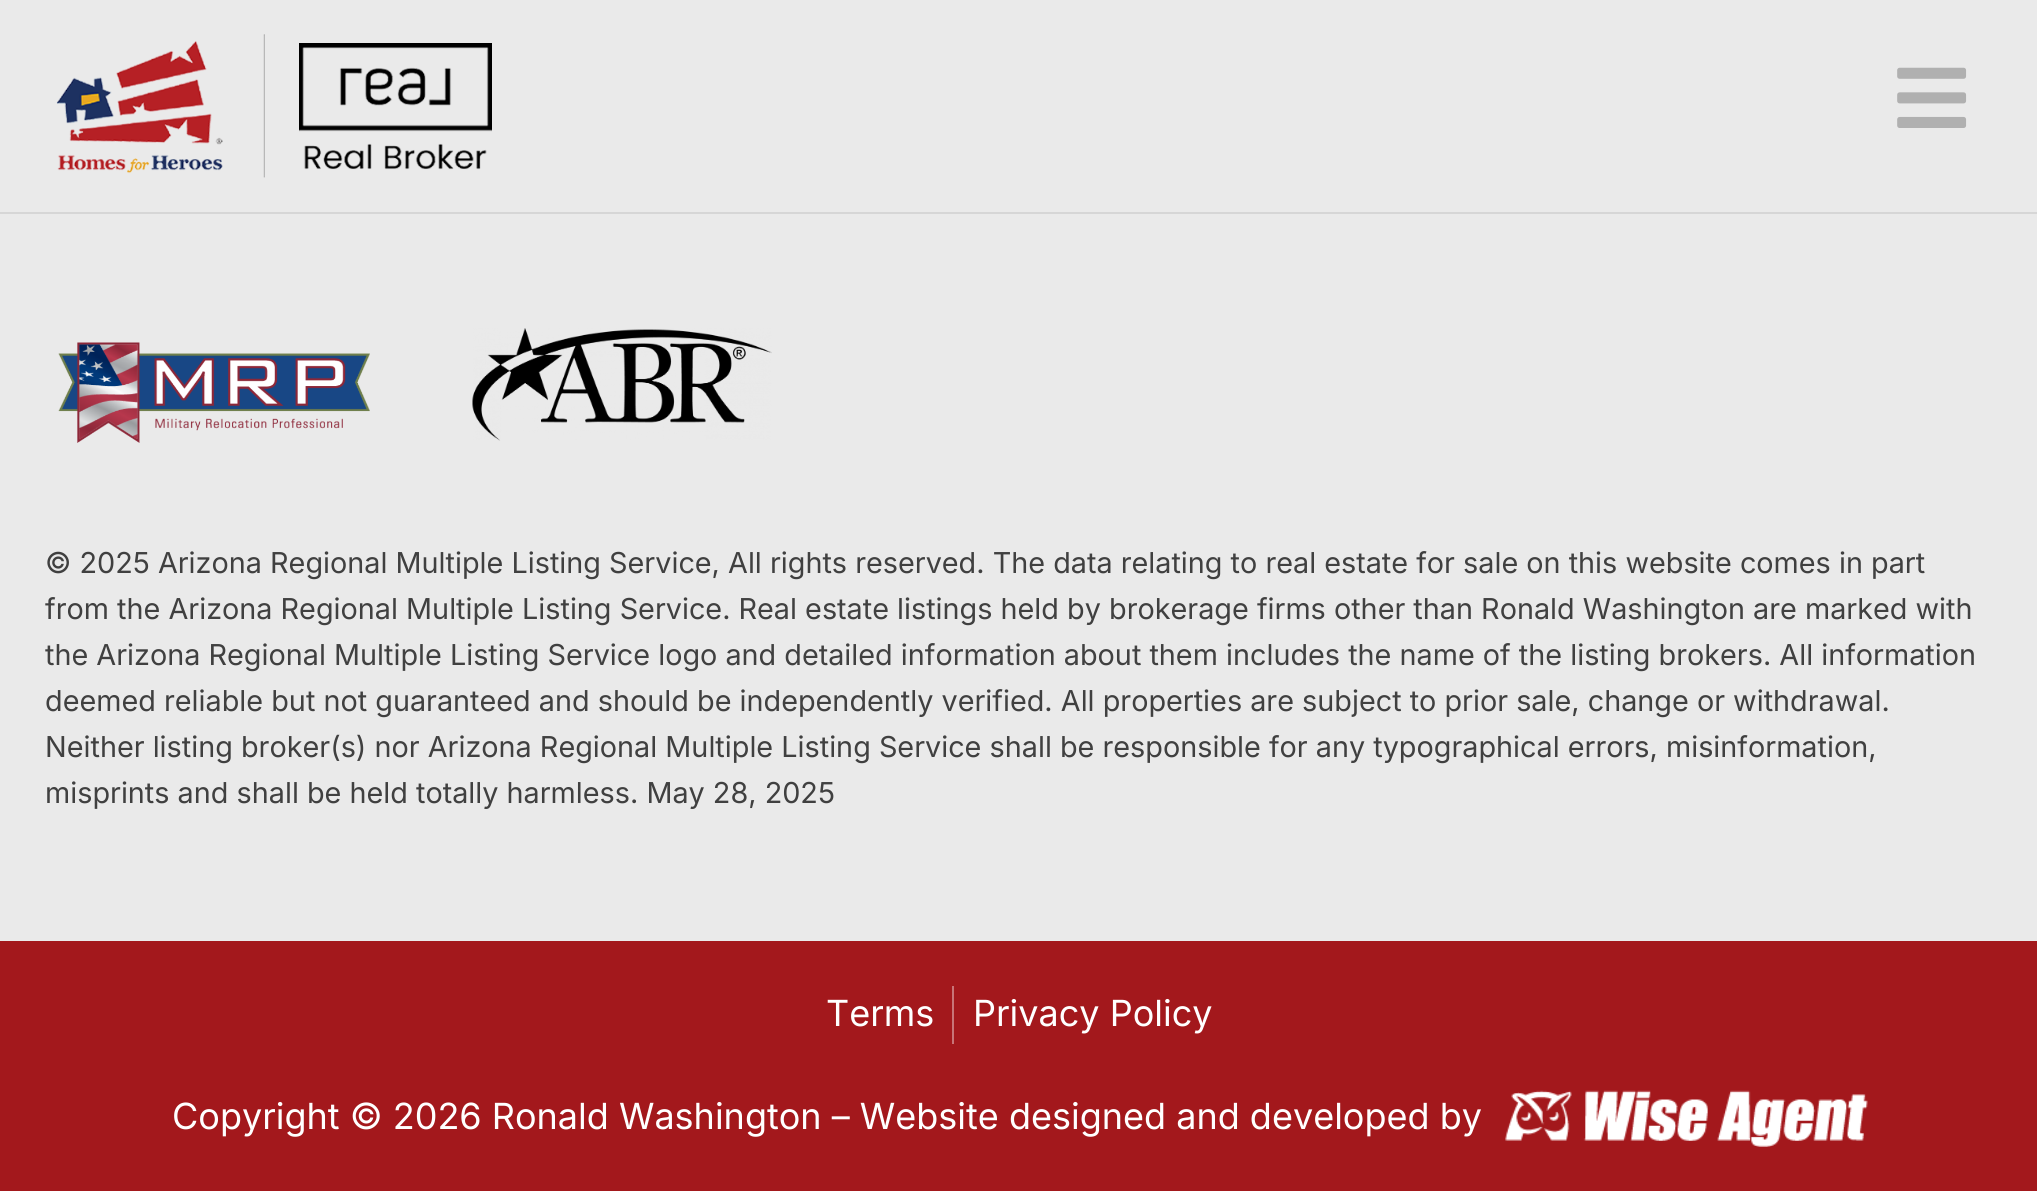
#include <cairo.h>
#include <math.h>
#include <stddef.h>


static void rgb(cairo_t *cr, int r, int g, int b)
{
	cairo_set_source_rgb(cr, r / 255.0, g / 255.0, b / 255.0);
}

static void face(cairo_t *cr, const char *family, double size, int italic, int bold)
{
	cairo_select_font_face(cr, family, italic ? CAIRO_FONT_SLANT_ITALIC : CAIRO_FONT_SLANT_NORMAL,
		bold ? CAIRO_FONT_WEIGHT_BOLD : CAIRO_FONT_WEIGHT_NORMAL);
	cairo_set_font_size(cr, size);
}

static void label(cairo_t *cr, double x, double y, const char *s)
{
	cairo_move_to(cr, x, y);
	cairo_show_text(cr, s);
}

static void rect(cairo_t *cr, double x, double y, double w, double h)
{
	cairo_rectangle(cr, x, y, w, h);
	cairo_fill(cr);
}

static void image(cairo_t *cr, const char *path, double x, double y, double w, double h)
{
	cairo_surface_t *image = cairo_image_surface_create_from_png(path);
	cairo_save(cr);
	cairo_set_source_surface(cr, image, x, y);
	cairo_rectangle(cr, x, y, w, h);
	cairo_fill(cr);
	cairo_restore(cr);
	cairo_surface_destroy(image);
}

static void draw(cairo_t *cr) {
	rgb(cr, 234, 234, 234);
	cairo_paint(cr);
	rgb(cr, 214, 214, 214);
	rect(cr, 0, 212, 2037, 2);
	image(cr, "image0.png", 56, 34, 436, 144);
	image(cr, "image1.png", 1897, 67, 70, 61);
	image(cr, "image2.png", 58, 342, 312, 101);
	image(cr, "image3.png", 472, 328, 300, 113);
	face(cr, "Inter", 28.8, 0, 0);
	rgb(cr, 64, 64, 64);
	label(cr, 45, 573, "© 2025 Arizona Regional Multiple Listing Service, All rights reserved. The data relating to real estate for sale on this website comes in part");
	label(cr, 45, 619, "from the Arizona Regional Multiple Listing Service. Real estate listings held by brokerage firms other than Ronald Washington are marked with");
	label(cr, 45, 665, "the Arizona Regional Multiple Listing Service logo and detailed information about them includes the name of the listing brokers. All information");
	label(cr, 45, 711, "deemed reliable but not guaranteed and should be independently verified. All properties are subject to prior sale, change or withdrawal.");
	label(cr, 45, 757, "Neither listing broker(s) nor Arizona Regional Multiple Listing Service shall be responsible for any typographical errors, misinformation,");
	label(cr, 45, 803, "misprints and shall be held totally harmless. May 28, 2025");
	rgb(cr, 163, 24, 28);
	rect(cr, 0, 941, 2037, 250);
	face(cr, "Inter", 36, 0, 0);
	rgb(cr, 255, 255, 255);
	label(cr, 826, 1026, "Terms");
	rgb(cr, 200, 116, 119);
	rect(cr, 952, 986, 2, 58);
	rgb(cr, 255, 255, 255);
	label(cr, 973, 1026, "Privacy Policy");
	label(cr, 172, 1129, "Copyright © 2026 Ronald Washington – Website designed and developed by");
	image(cr, "image4.png", 1505, 1090, 363, 57);
}

int main(void) {
	cairo_surface_t *surface = cairo_image_surface_create(CAIRO_FORMAT_RGB24, 2037, 1191);
	cairo_t *cr = cairo_create(surface);
	cairo_font_options_t *options = cairo_font_options_create();
	cairo_font_options_set_hint_metrics(options, CAIRO_HINT_METRICS_OFF);
	cairo_font_options_set_hint_style(options, CAIRO_HINT_STYLE_NONE);
	cairo_set_font_options(cr, options);
	cairo_set_miter_limit(cr, 4);
	draw(cr);
	cairo_surface_write_to_png(surface, "render.png");
	cairo_font_options_destroy(options);
	cairo_destroy(cr);
	cairo_surface_destroy(surface);
	return 0;
}
